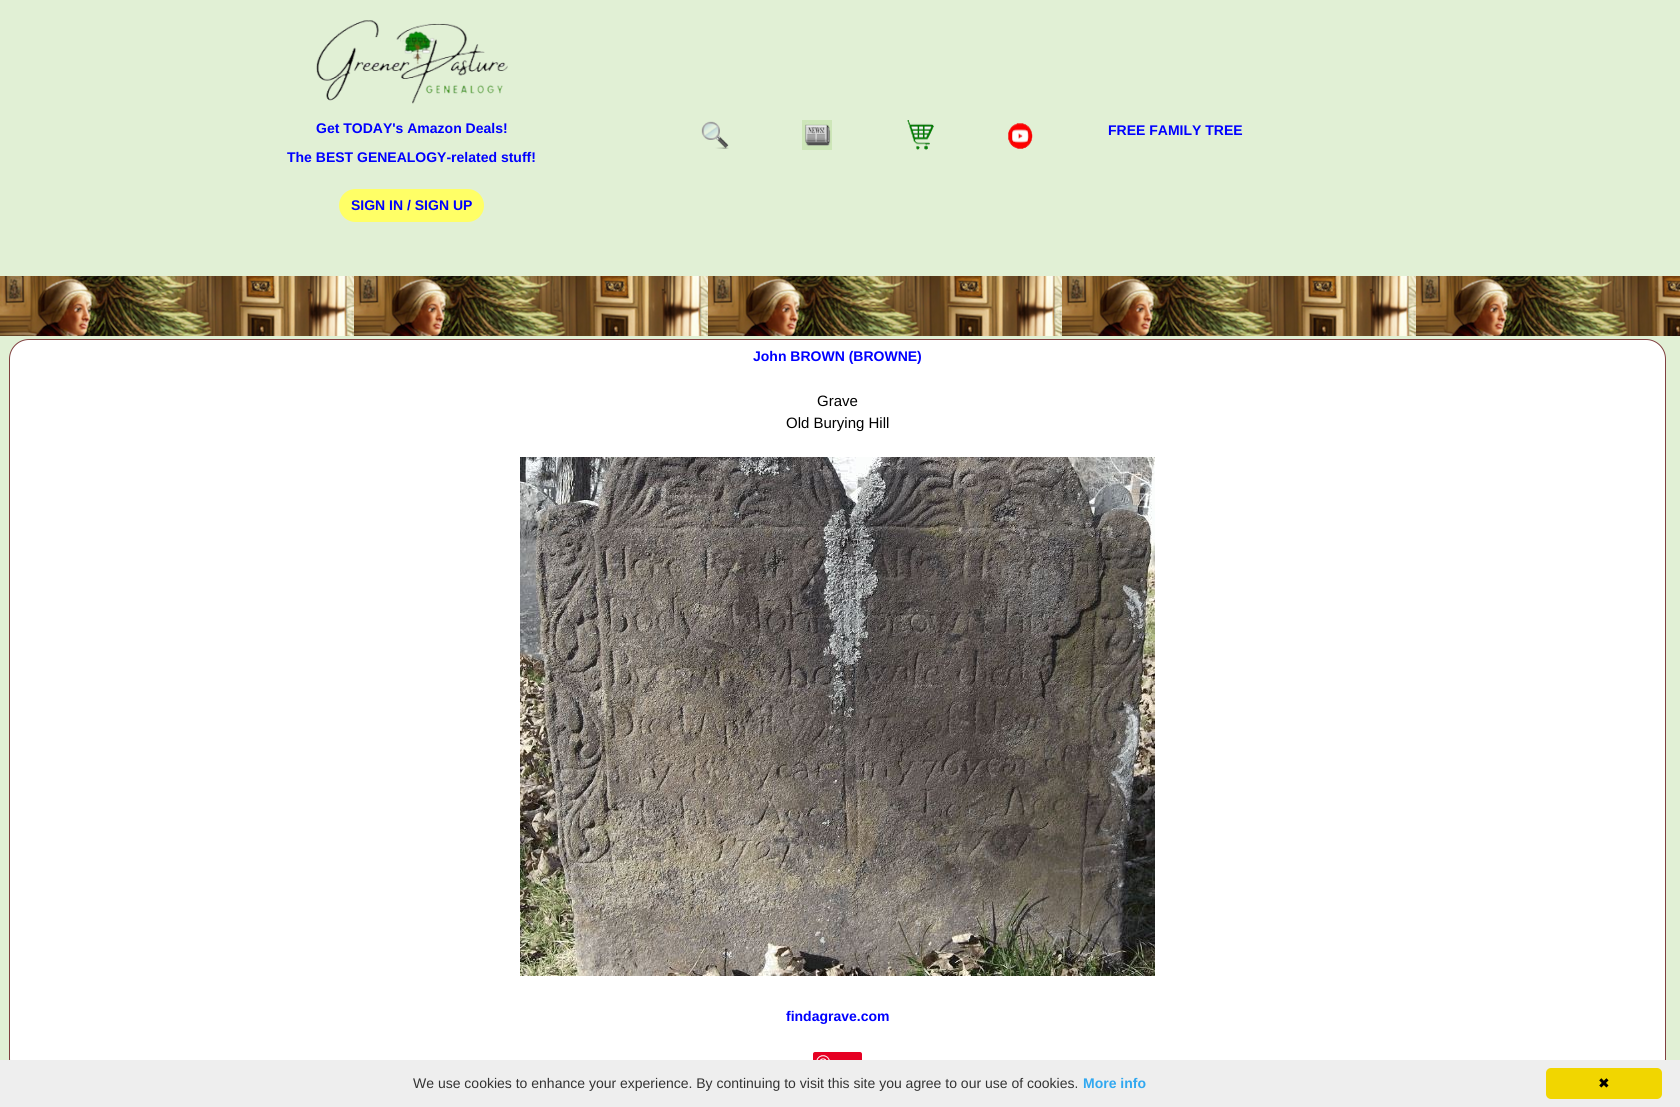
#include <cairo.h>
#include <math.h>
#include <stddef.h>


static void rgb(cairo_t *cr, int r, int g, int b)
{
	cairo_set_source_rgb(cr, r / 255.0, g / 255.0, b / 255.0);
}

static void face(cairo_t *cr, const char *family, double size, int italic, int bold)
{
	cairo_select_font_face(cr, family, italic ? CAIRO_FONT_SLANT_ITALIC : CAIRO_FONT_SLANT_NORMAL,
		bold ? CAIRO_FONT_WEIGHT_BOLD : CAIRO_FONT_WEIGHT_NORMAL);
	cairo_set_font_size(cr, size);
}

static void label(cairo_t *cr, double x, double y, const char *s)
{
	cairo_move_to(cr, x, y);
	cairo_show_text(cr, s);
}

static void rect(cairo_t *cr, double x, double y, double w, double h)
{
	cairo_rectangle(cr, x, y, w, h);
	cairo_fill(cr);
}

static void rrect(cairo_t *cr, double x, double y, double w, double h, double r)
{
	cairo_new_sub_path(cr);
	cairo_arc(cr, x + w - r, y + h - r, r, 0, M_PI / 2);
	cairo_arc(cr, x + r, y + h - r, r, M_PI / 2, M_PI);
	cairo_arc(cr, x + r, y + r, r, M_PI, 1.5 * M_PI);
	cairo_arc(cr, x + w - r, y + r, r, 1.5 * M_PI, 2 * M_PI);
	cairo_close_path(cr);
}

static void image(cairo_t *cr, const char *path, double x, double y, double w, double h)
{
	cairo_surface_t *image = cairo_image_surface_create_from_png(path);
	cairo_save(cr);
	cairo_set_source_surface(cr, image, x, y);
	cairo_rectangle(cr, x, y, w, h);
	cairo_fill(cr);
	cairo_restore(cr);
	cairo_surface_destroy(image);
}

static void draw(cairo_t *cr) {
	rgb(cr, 225, 240, 213);
	cairo_paint(cr);
	image(cr, "image0.png", 316, 20, 192, 84);
	face(cr, "Liberation Sans", 14, 0, 1);
	rgb(cr, 0, 0, 255);
	label(cr, 316, 133, "Get TODAY's Amazon Deals!");
	label(cr, 287, 162, "The BEST GENEALOGY-related stuff!");
	rgb(cr, 255, 255, 102);
	rrect(cr, 339, 189, 145, 33, 16.5);
	cairo_fill(cr);
	rgb(cr, 0, 0, 255);
	label(cr, 351, 210, "SIGN IN / SIGN UP");
	image(cr, "image1.png", 701, 121, 28, 28);
	image(cr, "image2.png", 802, 120, 30, 30);
	image(cr, "image3.png", 907, 120, 27, 30);
	image(cr, "image4.png", 1008, 123, 25, 26);
	label(cr, 1108, 135, "FREE FAMILY TREE");
	image(cr, "image5.png", 0, 276, 1680, 60);
	rgb(cr, 255, 255, 255);
	rrect(cr, 9.5, 339.5, 1656, 739, 19.5);
	cairo_fill_preserve(cr);
	rgb(cr, 128, 64, 64);
	cairo_set_line_width(cr, 1);
	cairo_stroke(cr);
	rgb(cr, 0, 0, 255);
	label(cr, 753, 361, "John BROWN (BROWNE)");
	face(cr, "Liberation Sans", 15, 0, 0);
	rgb(cr, 0, 0, 0);
	label(cr, 817, 406, "Grave");
	label(cr, 786, 428, "Old Burying Hill");
	image(cr, "image6.png", 520, 457, 635, 519);
	face(cr, "Liberation Sans", 14, 0, 1);
	rgb(cr, 0, 0, 255);
	label(cr, 786, 1021, "findagrave.com");
	rgb(cr, 230, 0, 35);
	rrect(cr, 813, 1052, 49, 20, 2);
	cairo_fill(cr);
	image(cr, "image7.png", 816, 1055, 14, 5);
	rgb(cr, 238, 238, 238);
	rect(cr, 0, 1060, 1680, 47);
	face(cr, "Liberation Sans", 14, 0, 0);
	rgb(cr, 51, 51, 51);
	label(cr, 413, 1088, "We use cookies to enhance your experience. By continuing to visit this site you agree to our use of cookies.");
	face(cr, "Liberation Sans", 14, 0, 1);
	rgb(cr, 49, 168, 240);
	label(cr, 1083, 1088, "More info");
	rgb(cr, 241, 214, 0);
	rrect(cr, 1546, 1068, 116, 31, 5);
	cairo_fill(cr);
	face(cr, "DejaVu Sans", 14, 0, 0);
	rgb(cr, 0, 0, 0);
	label(cr, 1598, 1088, "✖");
}

int main(void) {
	cairo_surface_t *surface = cairo_image_surface_create(CAIRO_FORMAT_RGB24, 1680, 1107);
	cairo_t *cr = cairo_create(surface);
	cairo_font_options_t *options = cairo_font_options_create();
	cairo_font_options_set_hint_metrics(options, CAIRO_HINT_METRICS_OFF);
	cairo_font_options_set_hint_style(options, CAIRO_HINT_STYLE_NONE);
	cairo_set_font_options(cr, options);
	cairo_set_miter_limit(cr, 4);
	draw(cr);
	cairo_surface_write_to_png(surface, "render.png");
	cairo_font_options_destroy(options);
	cairo_destroy(cr);
	cairo_surface_destroy(surface);
	return 0;
}
